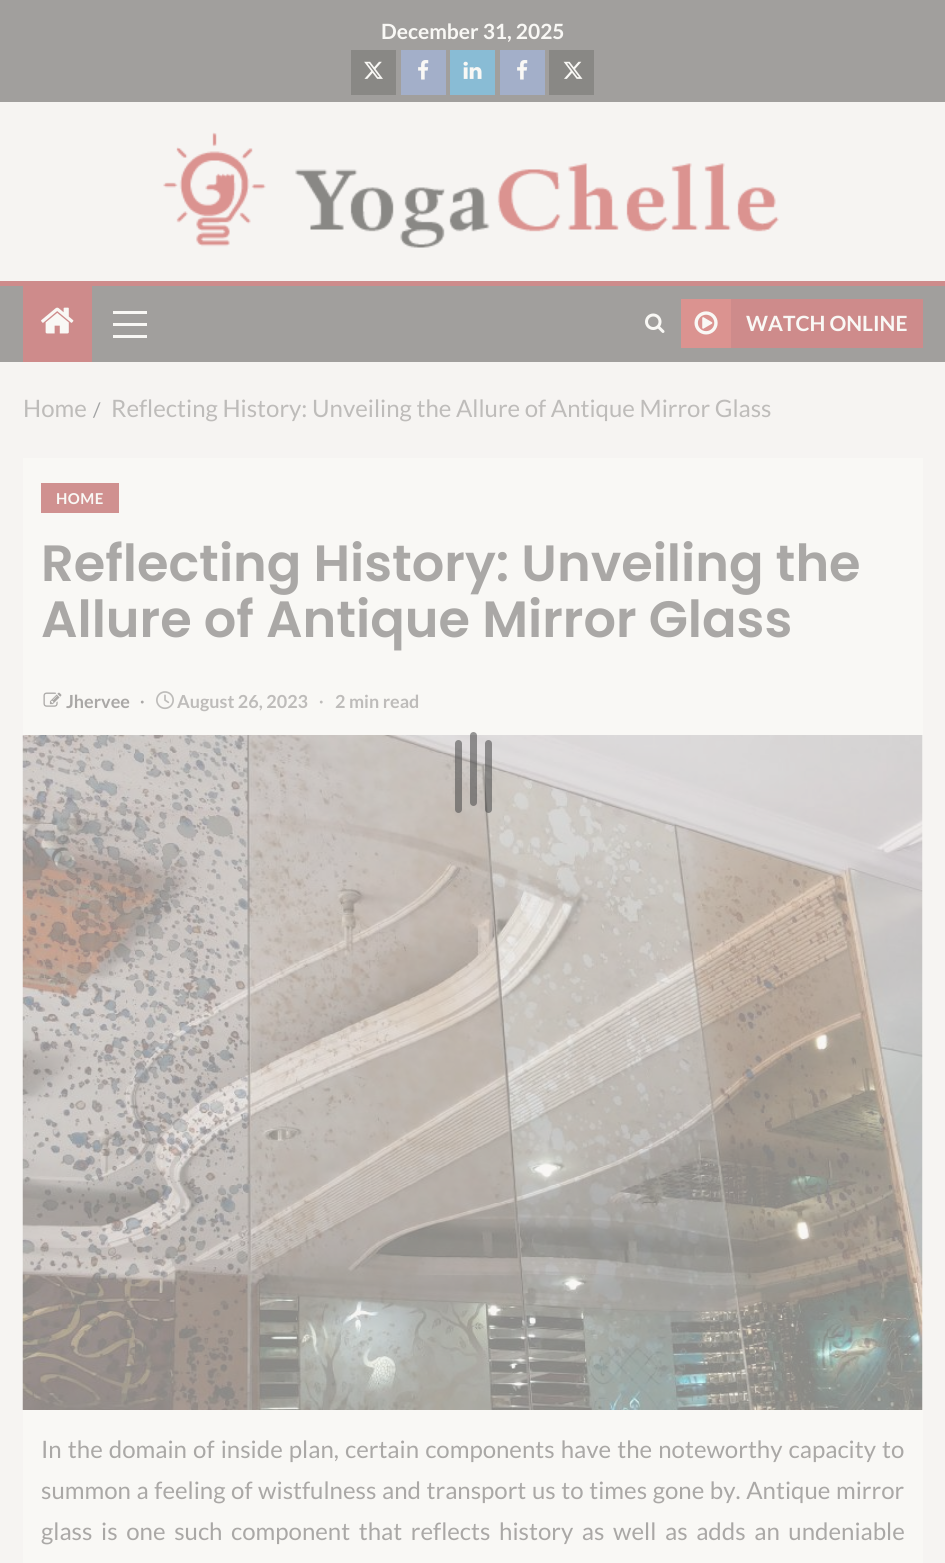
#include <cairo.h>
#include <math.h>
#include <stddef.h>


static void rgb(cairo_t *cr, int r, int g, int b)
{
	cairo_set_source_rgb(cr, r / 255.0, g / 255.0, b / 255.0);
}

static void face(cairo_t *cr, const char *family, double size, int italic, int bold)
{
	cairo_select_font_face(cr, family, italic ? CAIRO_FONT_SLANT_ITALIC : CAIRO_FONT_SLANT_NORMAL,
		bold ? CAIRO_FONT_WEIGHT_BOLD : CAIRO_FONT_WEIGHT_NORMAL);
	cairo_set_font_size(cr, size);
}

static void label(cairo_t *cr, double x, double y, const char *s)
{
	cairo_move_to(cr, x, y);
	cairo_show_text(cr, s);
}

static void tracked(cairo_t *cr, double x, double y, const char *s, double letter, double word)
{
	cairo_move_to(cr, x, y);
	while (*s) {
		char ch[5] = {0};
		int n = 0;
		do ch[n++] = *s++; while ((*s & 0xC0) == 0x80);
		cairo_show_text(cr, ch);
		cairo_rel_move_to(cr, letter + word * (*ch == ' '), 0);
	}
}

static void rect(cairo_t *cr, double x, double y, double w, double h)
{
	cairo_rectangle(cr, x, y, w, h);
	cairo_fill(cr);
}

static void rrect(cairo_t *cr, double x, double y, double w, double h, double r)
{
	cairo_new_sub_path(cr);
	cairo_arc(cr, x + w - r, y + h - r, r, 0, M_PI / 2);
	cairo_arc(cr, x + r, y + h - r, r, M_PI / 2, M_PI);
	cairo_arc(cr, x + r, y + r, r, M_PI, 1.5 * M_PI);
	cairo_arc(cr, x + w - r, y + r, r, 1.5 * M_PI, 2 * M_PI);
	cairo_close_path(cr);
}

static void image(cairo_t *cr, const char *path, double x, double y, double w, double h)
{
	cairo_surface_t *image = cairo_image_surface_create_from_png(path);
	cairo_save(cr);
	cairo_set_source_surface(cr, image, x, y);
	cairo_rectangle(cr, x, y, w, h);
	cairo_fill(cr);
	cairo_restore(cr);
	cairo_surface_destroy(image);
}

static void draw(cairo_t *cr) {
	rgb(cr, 246, 244, 242);
	cairo_paint(cr);
	rgb(cr, 161, 159, 157);
	rect(cr, 0, 0, 945, 102);
	face(cr, "Lato", 21, 0, 1);
	rgb(cr, 249, 248, 245);
	label(cr, 381, 39, "December 31, 2025");
	rgb(cr, 137, 136, 133);
	rect(cr, 351, 50, 45, 45);
	image(cr, "image0.png", 364, 61, 19, 18);
	rgb(cr, 163, 175, 201);
	rect(cr, 401, 50, 45, 45);
	image(cr, "image1.png", 418, 60, 11, 20);
	rgb(cr, 137, 188, 213);
	rect(cr, 450, 50, 45, 45);
	image(cr, "image2.png", 463, 61, 19, 18);
	rgb(cr, 163, 175, 201);
	rect(cr, 500, 50, 45, 45);
	image(cr, "image1.png", 517, 60, 11, 20);
	rgb(cr, 137, 136, 133);
	rect(cr, 549, 50, 45, 45);
	image(cr, "image3.png", 563, 61, 20, 18);
	image(cr, "image4.png", 163, 132, 616, 116);
	rgb(cr, 161, 159, 157);
	rect(cr, 0, 286, 945, 76);
	rgb(cr, 206, 139, 139);
	rect(cr, 0, 281, 945, 5);
	rect(cr, 23, 286, 69, 76);
	image(cr, "image5.png", 41, 307, 33, 27);
	rgb(cr, 249, 248, 245);
	rect(cr, 113, 323, 34, 3);
	rect(cr, 113, 311, 34, 3);
	rect(cr, 113, 335, 34, 3);
	image(cr, "image6.png", 645, 313, 20, 20);
	rgb(cr, 219, 147, 144);
	rect(cr, 681, 299, 50, 49);
	image(cr, "image7.png", 694, 311, 24, 24);
	rgb(cr, 206, 139, 139);
	rect(cr, 731, 299, 192, 49);
	rgb(cr, 249, 248, 245);
	label(cr, 746, 331, "WATCH ONLINE");
	face(cr, "Lato", 24, 0, 0);
	rgb(cr, 190, 188, 186);
	label(cr, 23, 417, "Home");
	face(cr, "Lato", 20, 0, 0);
	rgb(cr, 162, 163, 164);
	label(cr, 93, 417, "/");
	face(cr, "Lato", 24, 0, 0);
	rgb(cr, 190, 188, 186);
	label(cr, 111, 417, "Reflecting History: Unveiling the Allure of Antique Mirror Glass");
	rgb(cr, 249, 248, 245);
	rect(cr, 23, 458, 900, 277);
	rgb(cr, 208, 145, 144);
	rect(cr, 41, 483, 78, 30);
	face(cr, "Lato", 15, 0, 1);
	rgb(cr, 249, 248, 245);
	tracked(cr, 56, 504, "HOME", 0.5, 0);
	face(cr, "Poppins SemiBold", 51, 0, 0);
	rgb(cr, 170, 168, 166);
	label(cr, 41, 581, "Reflecting History: Unveiling the");
	label(cr, 41, 637, "Allure of Antique Mirror Glass");
	image(cr, "image8.png", 43, 692, 19, 15);
	face(cr, "Lato", 18, 0, 1);
	label(cr, 66, 708, "Jhervee");
	face(cr, "Liberation Serif", 18, 0, 1);
	label(cr, 140, 708, "∙");
	image(cr, "image9.png", 156, 691, 18, 19);
	face(cr, "Lato", 18, 0, 1);
	rgb(cr, 190, 188, 186);
	label(cr, 177, 708, "August 26, 2023");
	face(cr, "Liberation Serif", 18, 0, 1);
	label(cr, 319, 708, "∙");
	face(cr, "Lato", 18, 0, 1);
	label(cr, 335, 708, "2 min read");
	image(cr, "image10.png", 22, 735, 901, 675);
	rgb(cr, 249, 248, 245);
	rect(cr, 23, 1410, 900, 153);
	face(cr, "Lato", 24, 0, 0);
	rgb(cr, 170, 168, 166);
	tracked(cr, 41, 1458, "In the domain of inside plan, certain components have the noteworthy capacity to", 0, 1.5);
	tracked(cr, 41, 1499, "summon a feeling of wistfulness and transport us to times gone by. Antique mirror", 0, 1);
	tracked(cr, 41, 1540, "glass is one such component that reflects history as well as adds an undeniable", 0, 4);
	cairo_set_source_rgba(cr, 0.29, 0.29, 0.29, 0.56);
	rrect(cr, 470, 732, 7, 74, 3.5);
	cairo_fill(cr);
	rrect(cr, 455, 740, 7, 73, 3.5);
	cairo_fill(cr);
	rrect(cr, 485, 740, 7, 73, 3.5);
	cairo_fill(cr);
}

int main(void) {
	cairo_surface_t *surface = cairo_image_surface_create(CAIRO_FORMAT_RGB24, 945, 1563);
	cairo_t *cr = cairo_create(surface);
	cairo_font_options_t *options = cairo_font_options_create();
	cairo_font_options_set_hint_metrics(options, CAIRO_HINT_METRICS_OFF);
	cairo_font_options_set_hint_style(options, CAIRO_HINT_STYLE_NONE);
	cairo_set_font_options(cr, options);
	cairo_set_miter_limit(cr, 4);
	draw(cr);
	cairo_surface_write_to_png(surface, "render.png");
	cairo_font_options_destroy(options);
	cairo_destroy(cr);
	cairo_surface_destroy(surface);
	return 0;
}
